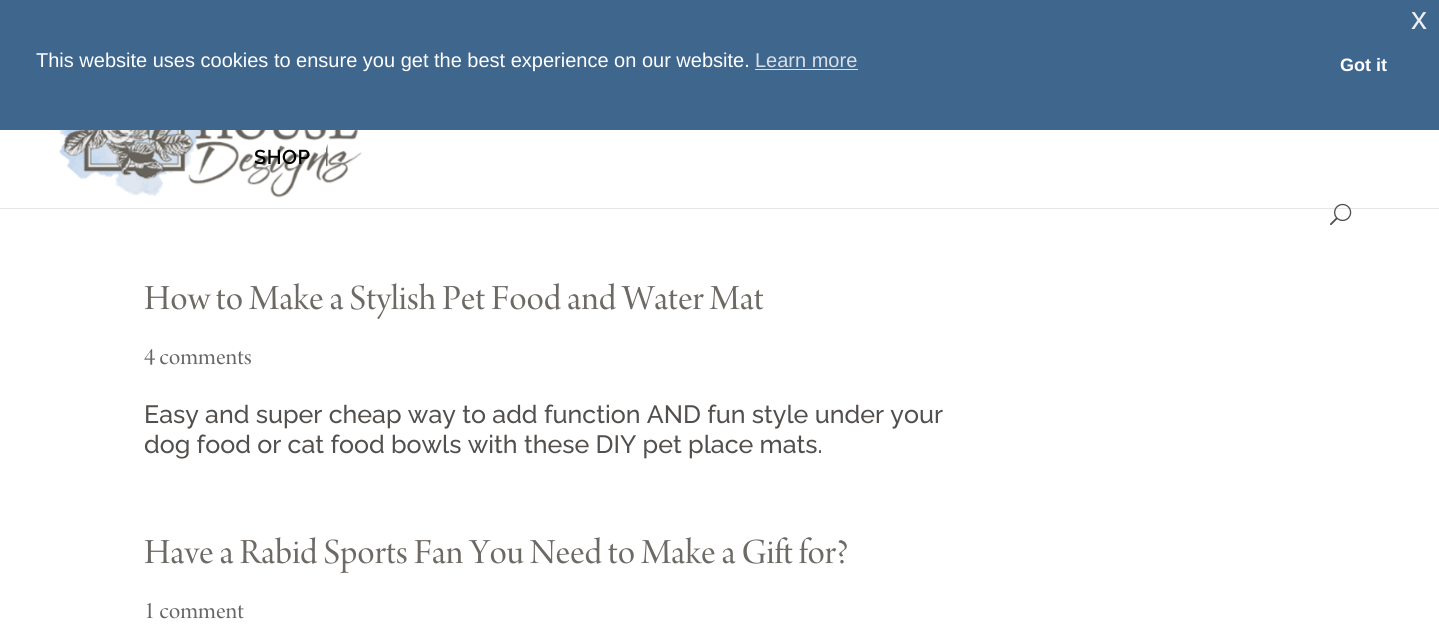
#include <cairo.h>
#include <math.h>
#include <stddef.h>


static void rgb(cairo_t *cr, int r, int g, int b)
{
	cairo_set_source_rgb(cr, r / 255.0, g / 255.0, b / 255.0);
}

static void face(cairo_t *cr, const char *family, double size, int italic, int bold)
{
	cairo_select_font_face(cr, family, italic ? CAIRO_FONT_SLANT_ITALIC : CAIRO_FONT_SLANT_NORMAL,
		bold ? CAIRO_FONT_WEIGHT_BOLD : CAIRO_FONT_WEIGHT_NORMAL);
	cairo_set_font_size(cr, size);
}

static void label(cairo_t *cr, double x, double y, const char *s)
{
	cairo_move_to(cr, x, y);
	cairo_show_text(cr, s);
}

static void tracked(cairo_t *cr, double x, double y, const char *s, double letter, double word)
{
	cairo_move_to(cr, x, y);
	while (*s) {
		char ch[5] = {0};
		int n = 0;
		do ch[n++] = *s++; while ((*s & 0xC0) == 0x80);
		cairo_show_text(cr, ch);
		cairo_rel_move_to(cr, letter + word * (*ch == ' '), 0);
	}
}

static void rect(cairo_t *cr, double x, double y, double w, double h)
{
	cairo_rectangle(cr, x, y, w, h);
	cairo_fill(cr);
}

static void image(cairo_t *cr, const char *path, double x, double y, double w, double h)
{
	cairo_surface_t *image = cairo_image_surface_create_from_png(path);
	cairo_save(cr);
	cairo_set_source_surface(cr, image, x, y);
	cairo_rectangle(cr, x, y, w, h);
	cairo_fill(cr);
	cairo_restore(cr);
	cairo_surface_destroy(image);
}

static void draw(cairo_t *cr) {
	rgb(cr, 255, 255, 255);
	cairo_paint(cr);
	rgb(cr, 63, 102, 140);
	rect(cr, 0, 0, 1439, 130);
	face(cr, "Liberation Sans", 32, 0, 0);
	rgb(cr, 236, 240, 244);
	label(cr, 1411, 29, "x");
	face(cr, "Liberation Sans", 20, 0, 0);
	rgb(cr, 255, 255, 255);
	label(cr, 36, 67, "This website uses cookies to ensure you get the best experience on our website.");
	rgb(cr, 217, 224, 232);
	label(cr, 755, 67, "Learn more");
	rect(cr, 755, 69, 103, 1);
	face(cr, "Liberation Sans", 18, 0, 1);
	rgb(cr, 255, 255, 255);
	label(cr, 1340, 71, "Got it");
	rgb(cr, 230, 230, 230);
	rect(cr, 0, 208, 1439, 1);
	image(cr, "image0.png", 58, 130, 304, 68);
	cairo_set_source_rgba(cr, 1, 1, 1, 0.04);
	cairo_new_path(cr);
	cairo_move_to(cr, 239, 144);
	cairo_line_to(cr, 328, 144);
	cairo_line_to(cr, 326, 149);
	cairo_line_to(cr, 239, 149);
	cairo_close_path(cr);
	cairo_fill(cr);
	rgb(cr, 109, 105, 101);
	cairo_new_path(cr);
	cairo_move_to(cr, 327.5, 144);
	cairo_line_to(cr, 327.5, 166);
	cairo_line_to(cr, 326, 166);
	cairo_line_to(cr, 326, 149);
	cairo_close_path(cr);
	cairo_fill(cr);
	face(cr, "Raleway SemiBold", 20, 0, 0);
	rgb(cr, 0, 0, 0);
	tracked(cr, 254, 164, "SHOP", 0.5, 0);
	image(cr, "image1.png", 1330, 203, 22, 23);
	face(cr, "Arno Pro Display", 37.5, 0, 0);
	rgb(cr, 109, 105, 101);
	label(cr, 144, 309, "How to Make a Stylish Pet Food and Water Mat");
	face(cr, "Arno Pro Display", 25, 0, 0);
	rgb(cr, 102, 102, 102);
	label(cr, 144, 364, "4 comments");
	face(cr, "Raleway Medium", 25, 0, 0);
	rgb(cr, 82, 79, 77);
	label(cr, 144, 423, "Easy and super cheap way to add function AND fun style under your");
	label(cr, 144, 453, "dog food or cat food bowls with these DIY pet place mats.");
	face(cr, "Arno Pro Display", 37.5, 0, 0);
	rgb(cr, 109, 105, 101);
	label(cr, 144, 563, "Have a Rabid Sports Fan You Need to Make a Gift for?");
	face(cr, "Arno Pro Display", 25, 0, 0);
	rgb(cr, 102, 102, 102);
	label(cr, 144, 618, "1 comment");
}

int main(void) {
	cairo_surface_t *surface = cairo_image_surface_create(CAIRO_FORMAT_RGB24, 1439, 627);
	cairo_t *cr = cairo_create(surface);
	cairo_font_options_t *options = cairo_font_options_create();
	cairo_font_options_set_hint_metrics(options, CAIRO_HINT_METRICS_OFF);
	cairo_font_options_set_hint_style(options, CAIRO_HINT_STYLE_NONE);
	cairo_set_font_options(cr, options);
	cairo_set_miter_limit(cr, 4);
	draw(cr);
	cairo_surface_write_to_png(surface, "render.png");
	cairo_font_options_destroy(options);
	cairo_destroy(cr);
	cairo_surface_destroy(surface);
	return 0;
}
